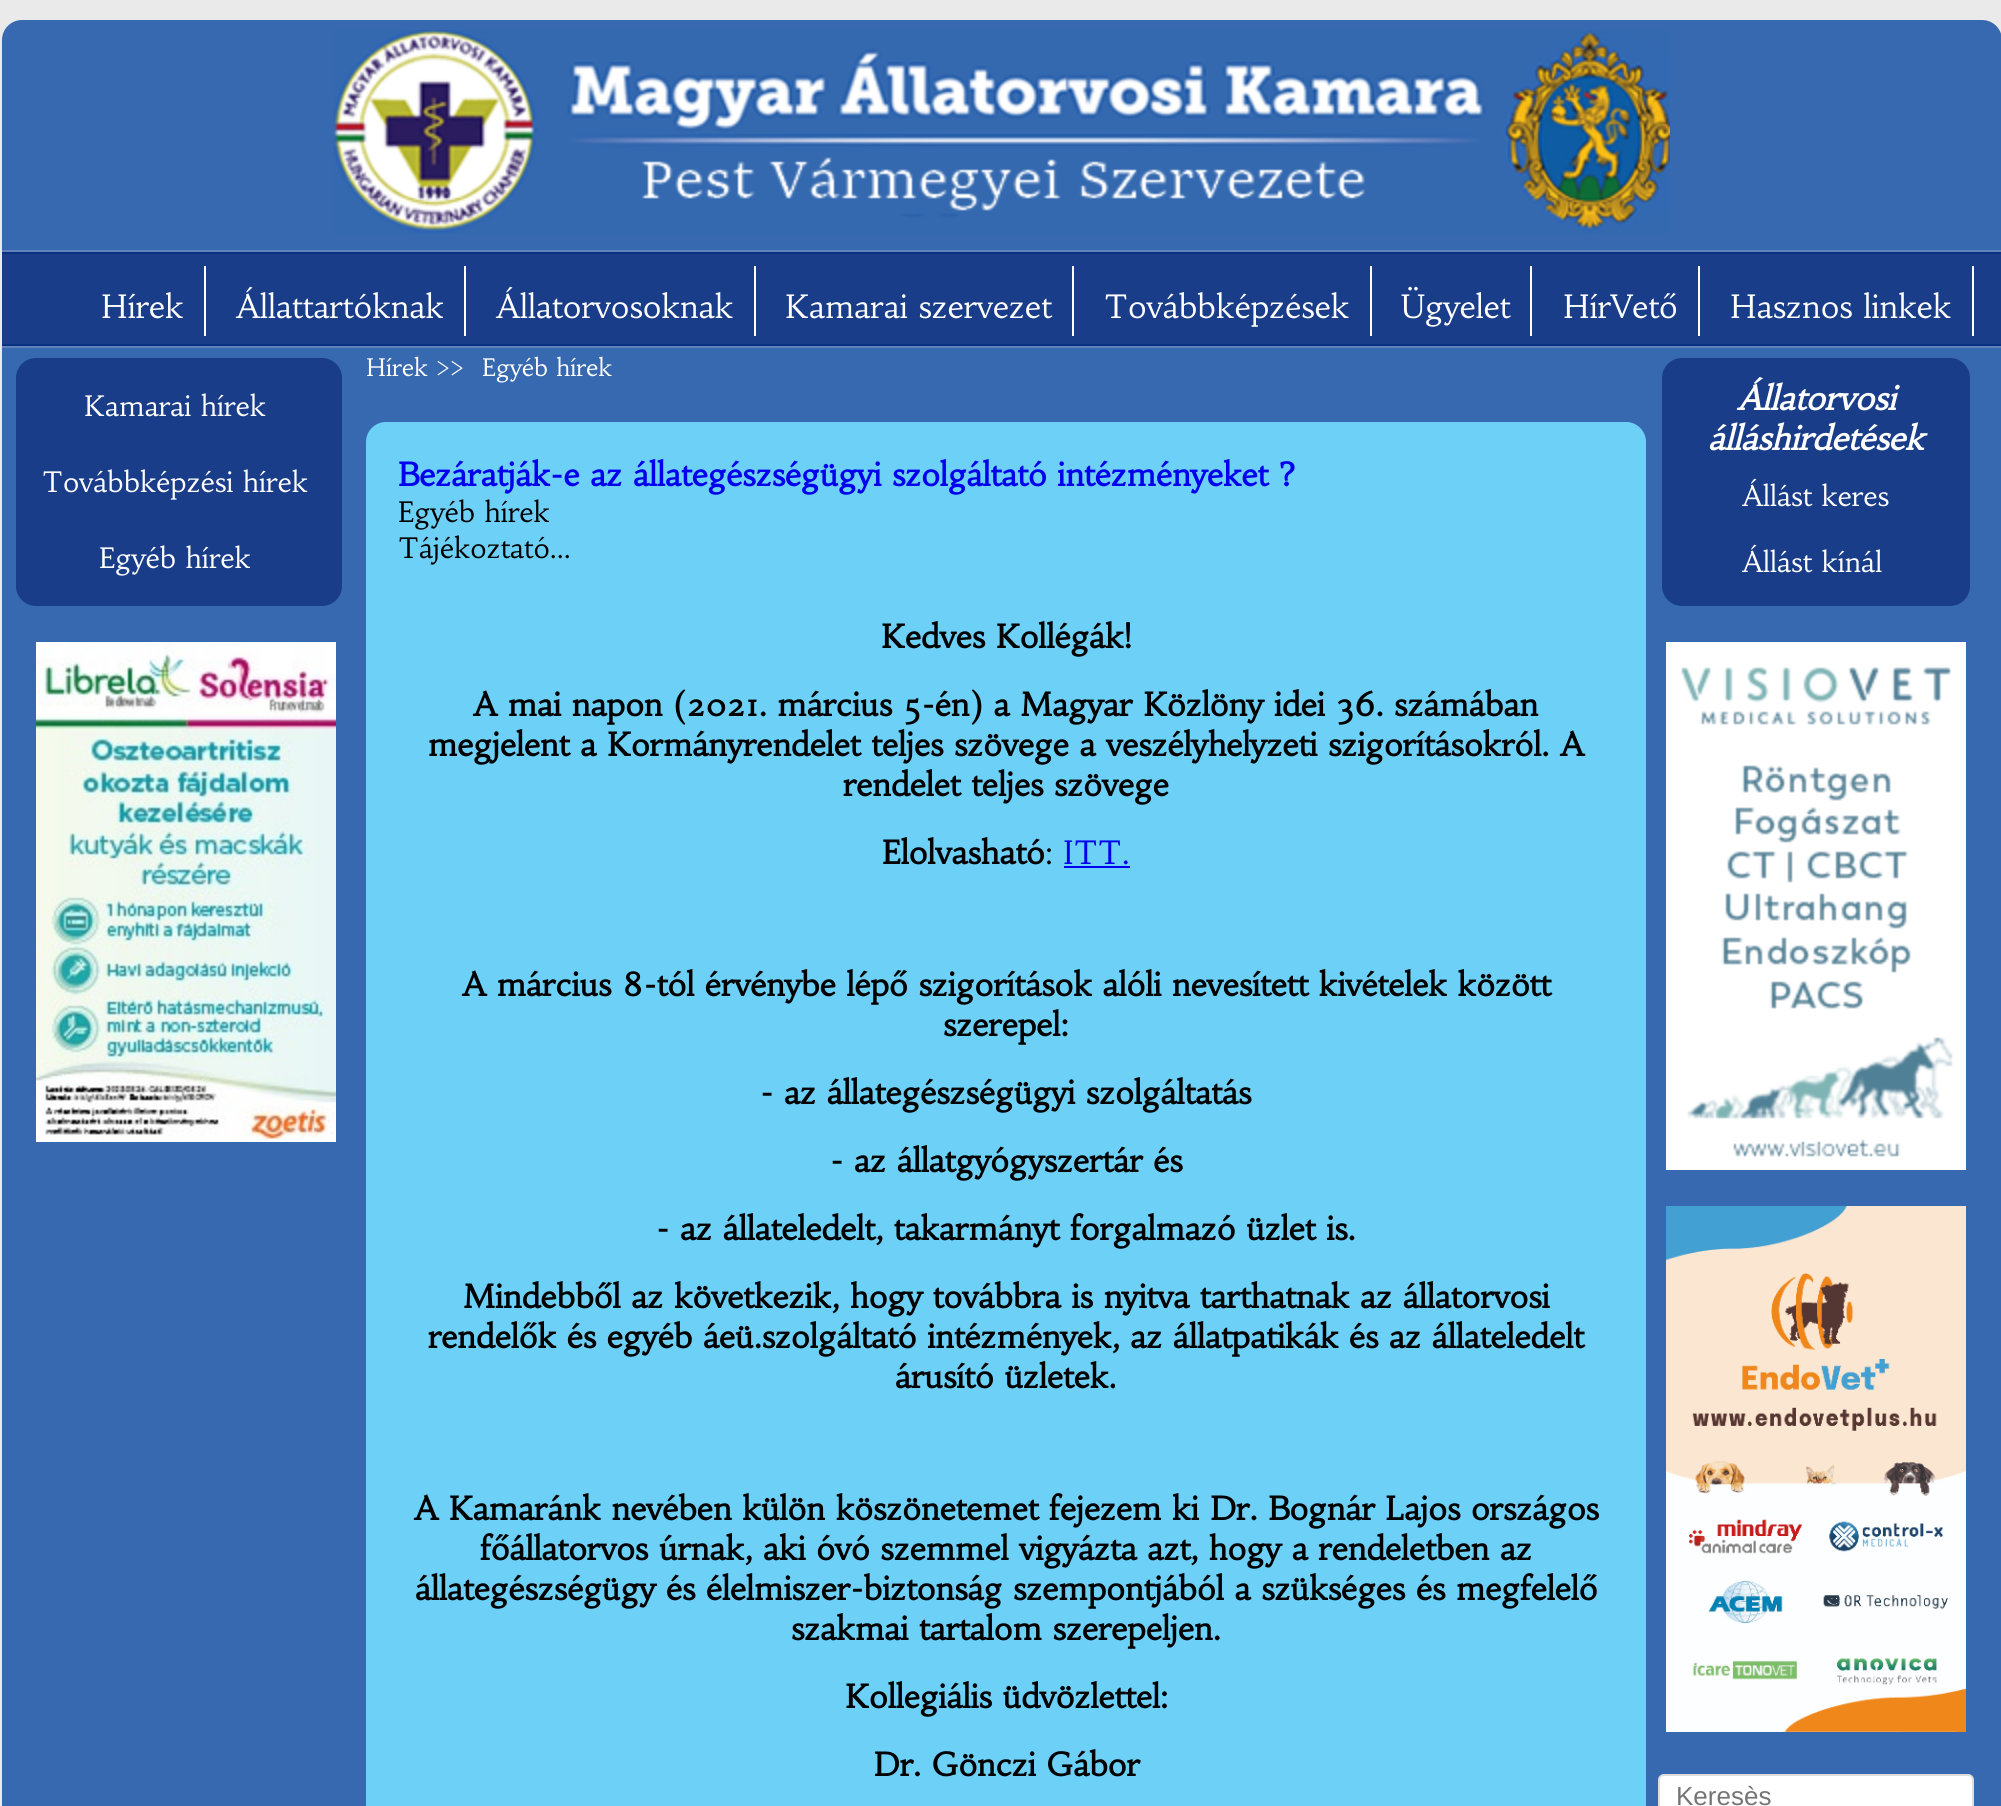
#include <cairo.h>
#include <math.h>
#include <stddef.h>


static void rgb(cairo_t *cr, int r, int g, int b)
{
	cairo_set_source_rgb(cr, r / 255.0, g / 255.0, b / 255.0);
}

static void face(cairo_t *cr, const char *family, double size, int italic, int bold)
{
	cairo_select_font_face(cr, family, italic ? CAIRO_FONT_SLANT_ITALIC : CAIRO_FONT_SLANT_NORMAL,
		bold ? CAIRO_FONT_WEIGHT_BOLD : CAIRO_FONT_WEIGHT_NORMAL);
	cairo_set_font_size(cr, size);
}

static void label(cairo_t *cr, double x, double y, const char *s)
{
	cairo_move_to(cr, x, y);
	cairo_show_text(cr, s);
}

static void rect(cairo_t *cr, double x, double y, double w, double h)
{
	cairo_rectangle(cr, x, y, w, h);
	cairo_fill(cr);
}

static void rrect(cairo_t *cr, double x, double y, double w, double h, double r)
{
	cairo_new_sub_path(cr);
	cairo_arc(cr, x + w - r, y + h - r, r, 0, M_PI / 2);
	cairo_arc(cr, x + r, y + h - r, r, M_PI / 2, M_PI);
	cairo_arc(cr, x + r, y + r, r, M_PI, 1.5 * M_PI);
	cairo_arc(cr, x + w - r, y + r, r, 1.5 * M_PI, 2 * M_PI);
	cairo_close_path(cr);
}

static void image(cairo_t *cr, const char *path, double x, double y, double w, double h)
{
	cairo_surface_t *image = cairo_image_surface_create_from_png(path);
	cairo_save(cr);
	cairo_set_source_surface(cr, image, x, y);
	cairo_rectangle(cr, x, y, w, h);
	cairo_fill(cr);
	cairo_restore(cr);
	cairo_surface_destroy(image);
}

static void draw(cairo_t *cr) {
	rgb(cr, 234, 234, 234);
	cairo_paint(cr);
	rgb(cr, 55, 105, 176);
	rrect(cr, 2, 20, 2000, 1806, 20);
	cairo_fill(cr);
	rgb(cr, 98, 131, 186);
	rect(cr, 2, 250, 1999, 2);
	image(cr, "image0.png", 333, 30, 1337, 204);
	rgb(cr, 25, 61, 137);
	rect(cr, 2, 254, 1999, 90);
	rgb(cr, 11, 49, 130);
	rect(cr, 2, 252, 1999, 2);
	rect(cr, 2, 344, 1999, 2);
	rgb(cr, 255, 255, 255);
	rect(cr, 204, 266, 2, 70);
	face(cr, "Habibi", 32, 0, 0);
	label(cr, 101, 318, "Hírek");
	rect(cr, 464, 266, 2, 70);
	label(cr, 236, 318, "Állattartóknak");
	rect(cr, 754, 266, 2, 70);
	label(cr, 496, 318, "Állatorvosoknak");
	rect(cr, 1072, 266, 2, 70);
	label(cr, 785, 318, "Kamarai szervezet");
	rect(cr, 1370, 266, 2, 70);
	label(cr, 1104, 318, "Továbbképzések");
	rect(cr, 1530, 266, 2, 70);
	label(cr, 1401, 318, "Ügyelet");
	rect(cr, 1698, 266, 2, 70);
	label(cr, 1563, 318, "HírVető");
	rect(cr, 1972, 266, 2, 70);
	label(cr, 1730, 318, "Hasznos linkek");
	rgb(cr, 98, 131, 186);
	rect(cr, 2, 346, 1999, 2);
	rgb(cr, 25, 61, 137);
	rrect(cr, 16, 358, 326, 248, 20);
	cairo_fill(cr);
	face(cr, "Habibi", 28, 0, 0);
	rgb(cr, 255, 255, 255);
	label(cr, 84, 416, "Kamarai hírek");
	label(cr, 42, 492, "Továbbképzési hírek");
	label(cr, 99, 568, "Egyéb hírek");
	image(cr, "image1.png", 36, 642, 300, 500);
	face(cr, "Habibi", 24, 0, 0);
	label(cr, 366, 376, "Hírek >>");
	label(cr, 482, 376, "Egyéb hírek");
	rgb(cr, 109, 208, 247);
	rrect(cr, 366, 422, 1280, 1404, 20);
	cairo_fill(cr);
	face(cr, "Habibi", 32, 0, 1);
	rgb(cr, 0, 0, 238);
	label(cr, 398, 486, "Bezáratják-e az állategészségügyi szolgáltató intézményeket ?");
	face(cr, "Habibi", 28, 0, 0);
	rgb(cr, 0, 0, 0);
	label(cr, 398, 522, "Egyéb hírek");
	label(cr, 398, 558, "Tájékoztató...");
	face(cr, "Habibi", 32, 0, 1);
	label(cr, 881, 648, "Kedves Kollégák!");
	label(cr, 473, 716, "A mai napon (2021. március 5-én) a Magyar Közlöny idei 36. számában");
	label(cr, 428, 756, "megjelent a Kormányrendelet teljes szövege a veszélyhelyzeti szigorításokról. A");
	label(cr, 843, 796, "rendelet teljes szövege");
	label(cr, 882, 864, "Elolvasható");
	face(cr, "Habibi", 32, 0, 0);
	label(cr, 1045, 864, ":");
	rgb(cr, 0, 0, 238);
	label(cr, 1063, 864, "ITT.");
	rect(cr, 1064, 866, 66, 2);
	face(cr, "Habibi", 32, 0, 1);
	rgb(cr, 0, 0, 0);
	label(cr, 462, 996, "A március 8-tól érvénybe lépő szigorítások alóli nevesített kivételek között");
	label(cr, 943, 1036, "szerepel:");
	label(cr, 760, 1104, "- az állategészségügyi szolgáltatás");
	label(cr, 830, 1172, "- az állatgyógyszertár és");
	label(cr, 656, 1240, "- az állateledelt, takarmányt forgalmazó üzlet is.");
	label(cr, 463, 1308, "Mindebből az következik, hogy továbbra is nyitva tarthatnak az állatorvosi");
	label(cr, 428, 1348, "rendelők és egyéb áeü.szolgáltató intézmények, az állatpatikák és az állateledelt");
	label(cr, 895, 1388, "árusító üzletek.");
	label(cr, 414, 1520, "A Kamaránk nevében külön köszönetemet fejezem ki Dr. Bognár Lajos országos");
	label(cr, 480, 1560, "főállatorvos úrnak, aki óvó szemmel vigyázta azt, hogy a rendeletben az");
	label(cr, 415, 1600, "állategészségügy és élelmiszer-biztonság szempontjából a szükséges és megfelelő");
	label(cr, 791, 1640, "szakmai tartalom szerepeljen.");
	label(cr, 845, 1708, "Kollegiális üdvözlettel:");
	label(cr, 873, 1776, "Dr. Gönczi Gábor");
	rgb(cr, 25, 61, 137);
	rrect(cr, 1662, 358, 308, 248, 20);
	cairo_fill(cr);
	face(cr, "Habibi", 32.75, 1, 1);
	rgb(cr, 255, 255, 255);
	label(cr, 1737, 410, "Állatorvosi");
	label(cr, 1708, 450, "álláshirdetések");
	face(cr, "Habibi", 28, 0, 0);
	label(cr, 1742, 506, "Állást keres");
	label(cr, 1742, 572, "Állást kínál");
	image(cr, "image2.png", 1666, 642, 300, 528);
	image(cr, "image3.png", 1666, 1206, 300, 526);
	rrect(cr, 1659, 1775, 314, 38, 5);
	cairo_fill_preserve(cr);
	rgb(cr, 221, 221, 221);
	cairo_stroke(cr);
	face(cr, "Liberation Sans", 26, 0, 0);
	rgb(cr, 117, 117, 117);
	label(cr, 1676, 1805, "Keresès");
}

int main(void) {
	cairo_surface_t *surface = cairo_image_surface_create(CAIRO_FORMAT_RGB24, 2001, 1806);
	cairo_t *cr = cairo_create(surface);
	cairo_font_options_t *options = cairo_font_options_create();
	cairo_font_options_set_hint_metrics(options, CAIRO_HINT_METRICS_OFF);
	cairo_font_options_set_hint_style(options, CAIRO_HINT_STYLE_NONE);
	cairo_set_font_options(cr, options);
	cairo_set_miter_limit(cr, 4);
	draw(cr);
	cairo_surface_write_to_png(surface, "render.png");
	cairo_font_options_destroy(options);
	cairo_destroy(cr);
	cairo_surface_destroy(surface);
	return 0;
}
